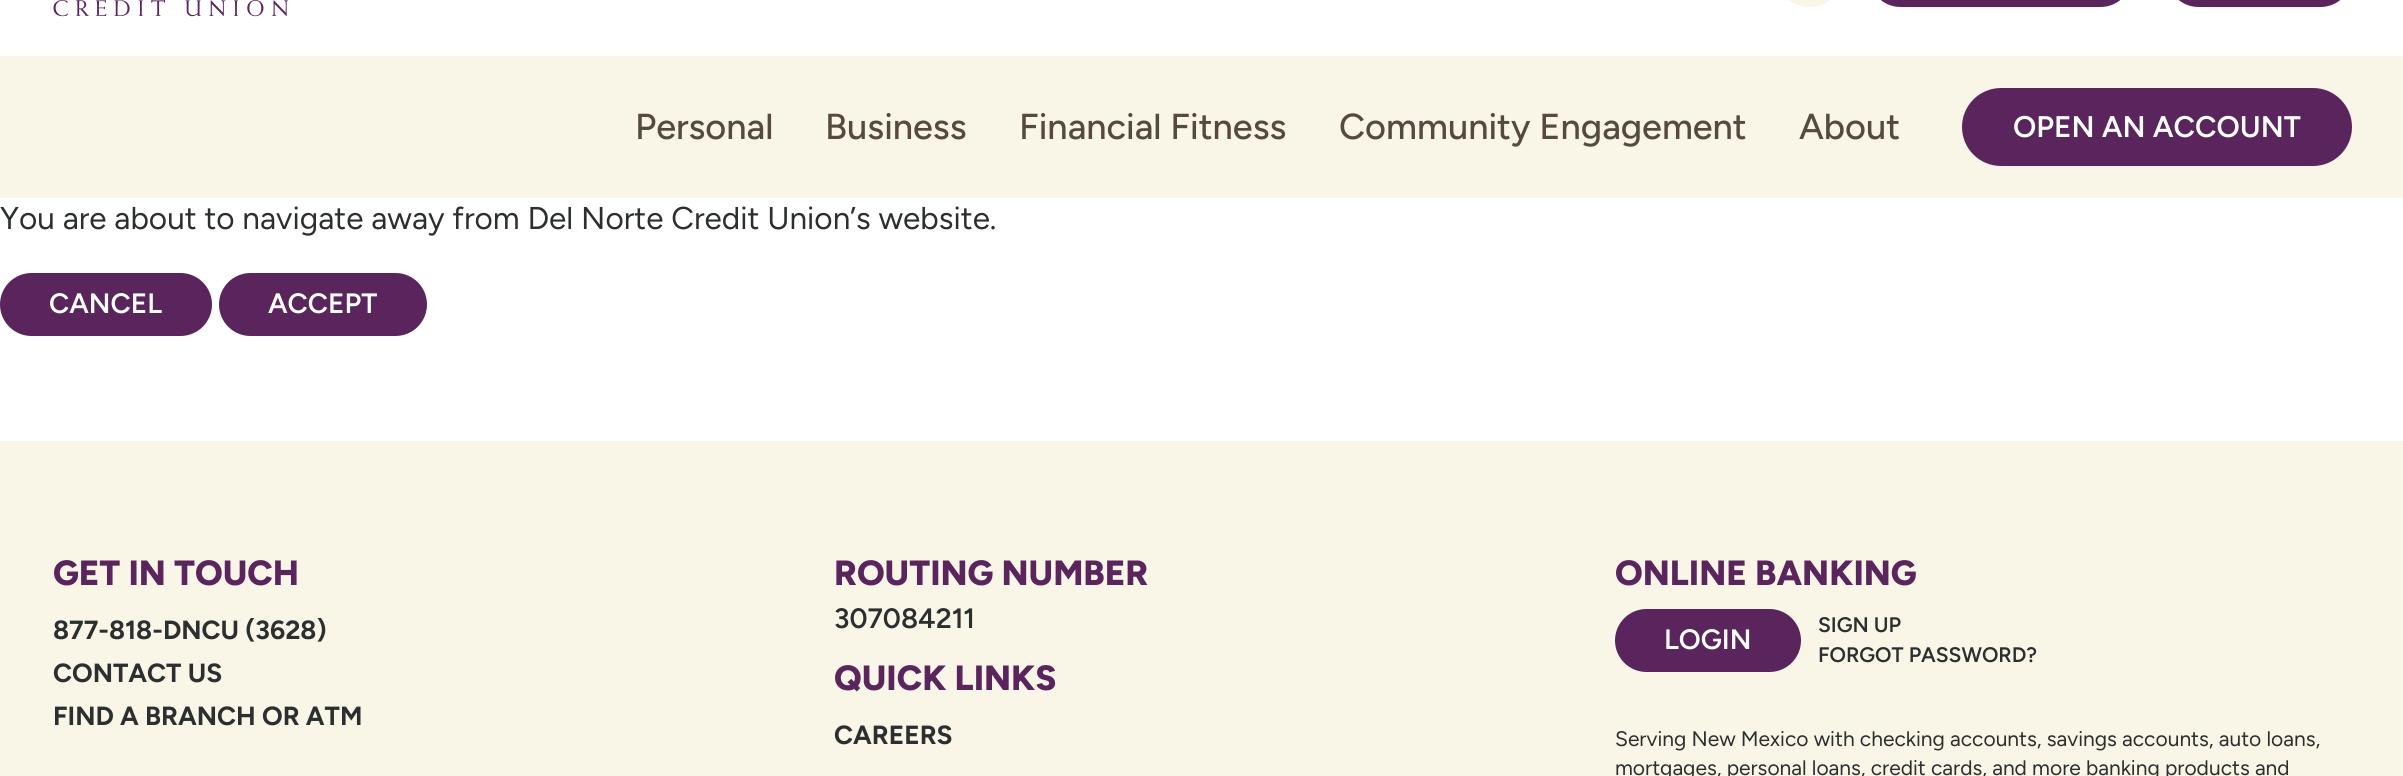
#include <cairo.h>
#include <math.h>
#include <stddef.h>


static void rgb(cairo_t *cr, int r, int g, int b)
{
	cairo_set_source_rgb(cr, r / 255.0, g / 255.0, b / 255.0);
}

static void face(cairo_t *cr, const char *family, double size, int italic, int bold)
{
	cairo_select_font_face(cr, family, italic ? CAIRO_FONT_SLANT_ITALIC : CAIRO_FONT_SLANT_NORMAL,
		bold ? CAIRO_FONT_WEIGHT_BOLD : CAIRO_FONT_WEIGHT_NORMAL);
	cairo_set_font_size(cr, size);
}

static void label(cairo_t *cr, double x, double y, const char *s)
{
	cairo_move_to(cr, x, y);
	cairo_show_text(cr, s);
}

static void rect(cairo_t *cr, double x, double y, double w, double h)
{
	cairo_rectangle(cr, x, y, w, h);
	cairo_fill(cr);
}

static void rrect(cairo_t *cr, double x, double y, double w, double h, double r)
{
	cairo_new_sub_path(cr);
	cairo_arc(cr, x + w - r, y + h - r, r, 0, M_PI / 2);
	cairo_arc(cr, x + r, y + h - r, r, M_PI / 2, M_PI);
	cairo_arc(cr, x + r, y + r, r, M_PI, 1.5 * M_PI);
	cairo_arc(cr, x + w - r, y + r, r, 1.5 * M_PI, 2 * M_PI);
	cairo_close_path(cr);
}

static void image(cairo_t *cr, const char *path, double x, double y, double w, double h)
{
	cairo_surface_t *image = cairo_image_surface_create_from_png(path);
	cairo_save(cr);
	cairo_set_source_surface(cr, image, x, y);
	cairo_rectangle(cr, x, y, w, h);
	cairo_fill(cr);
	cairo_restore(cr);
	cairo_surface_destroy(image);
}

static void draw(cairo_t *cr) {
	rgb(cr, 255, 255, 255);
	cairo_paint(cr);
	image(cr, "image0.png", 53, 0, 236, 17);
	rgb(cr, 249, 245, 231);
	cairo_arc(cr, 1809.5, -28, 35, 0, 2 * M_PI);
	cairo_fill(cr);
	rrect(cr, 1872.5, -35.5, 256, 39, 28);
	rgb(cr, 90, 37, 93);
	cairo_set_line_width(cr, 7);
	cairo_stroke(cr);
	rrect(cr, 2170.5, -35.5, 178, 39, 28);
	cairo_stroke(cr);
	rgb(cr, 249, 245, 231);
	rect(cr, 0, 56, 2403, 142);
	face(cr, "Figtree Medium", 36.1, 0, 0);
	rgb(cr, 86, 74, 60);
	label(cr, 635, 139, "Personal");
	label(cr, 825, 139, "Business");
	label(cr, 1019, 139, "Financial Fitness");
	label(cr, 1339, 139, "Community Engagement");
	label(cr, 1799, 139, "About");
	rgb(cr, 90, 37, 93);
	rrect(cr, 1965.5, 91.5, 383, 71, 35.5);
	cairo_fill_preserve(cr);
	cairo_stroke(cr);
	face(cr, "Figtree SemiBold", 29.75, 0, 0);
	rgb(cr, 255, 255, 255);
	label(cr, 2013, 137, "OPEN AN ACCOUNT");
	face(cr, "Figtree", 31.5, 0, 0);
	rgb(cr, 44, 47, 47);
	label(cr, 0, 229, "You are about to navigate away from Del Norte Credit Union’s website.");
	rgb(cr, 90, 37, 93);
	rrect(cr, 3.5, 276.5, 205, 56, 28);
	cairo_fill_preserve(cr);
	cairo_stroke(cr);
	face(cr, "Figtree SemiBold", 28, 0, 0);
	rgb(cr, 255, 255, 255);
	label(cr, 49, 313, "CANCEL");
	rgb(cr, 90, 37, 93);
	rrect(cr, 222.5, 276.5, 201, 56, 28);
	cairo_fill_preserve(cr);
	cairo_stroke(cr);
	rgb(cr, 255, 255, 255);
	label(cr, 268, 313, "ACCEPT");
	rgb(cr, 249, 245, 231);
	rect(cr, 0, 441, 2403, 335);
	face(cr, "Figtree ExtraBold", 35, 0, 0);
	rgb(cr, 90, 37, 93);
	label(cr, 53, 585, "GET IN TOUCH");
	face(cr, "Figtree", 26.25, 0, 1);
	rgb(cr, 44, 47, 47);
	label(cr, 53, 639, "877-818-DNCU (3628)");
	label(cr, 53, 682, "CONTACT US");
	label(cr, 53, 725, "FIND A BRANCH OR ATM");
	face(cr, "Figtree ExtraBold", 35, 0, 0);
	rgb(cr, 90, 37, 93);
	label(cr, 834, 585, "ROUTING NUMBER");
	face(cr, "Figtree SemiBold", 28, 0, 0);
	rgb(cr, 44, 47, 47);
	label(cr, 834, 628, "307084211");
	face(cr, "Figtree ExtraBold", 35, 0, 0);
	rgb(cr, 90, 37, 93);
	label(cr, 834, 690, "QUICK LINKS");
	face(cr, "Figtree", 26.25, 0, 1);
	rgb(cr, 44, 47, 47);
	label(cr, 834, 744, "CAREERS");
	face(cr, "Figtree ExtraBold", 35, 0, 0);
	rgb(cr, 90, 37, 93);
	label(cr, 1615, 585, "ONLINE BANKING");
	rrect(cr, 1618.5, 612.5, 179, 56, 28);
	cairo_fill_preserve(cr);
	cairo_stroke(cr);
	face(cr, "Figtree SemiBold", 28, 0, 0);
	rgb(cr, 255, 255, 255);
	label(cr, 1664, 649, "LOGIN");
	face(cr, "Figtree SemiBold", 21, 0, 0);
	rgb(cr, 44, 47, 47);
	label(cr, 1818, 632, "SIGN UP");
	label(cr, 1818, 662, "FORGOT PASSWORD?");
	face(cr, "Figtree", 21, 0, 0);
	label(cr, 1615, 746, "Serving New Mexico with checking accounts, savings accounts, auto loans,");
	label(cr, 1615, 775, "mortgages, personal loans, credit cards, and more banking products and");
}

int main(void) {
	cairo_surface_t *surface = cairo_image_surface_create(CAIRO_FORMAT_RGB24, 2403, 776);
	cairo_t *cr = cairo_create(surface);
	cairo_font_options_t *options = cairo_font_options_create();
	cairo_font_options_set_hint_metrics(options, CAIRO_HINT_METRICS_OFF);
	cairo_font_options_set_hint_style(options, CAIRO_HINT_STYLE_NONE);
	cairo_set_font_options(cr, options);
	cairo_set_miter_limit(cr, 4);
	draw(cr);
	cairo_surface_write_to_png(surface, "render.png");
	cairo_font_options_destroy(options);
	cairo_destroy(cr);
	cairo_surface_destroy(surface);
	return 0;
}
